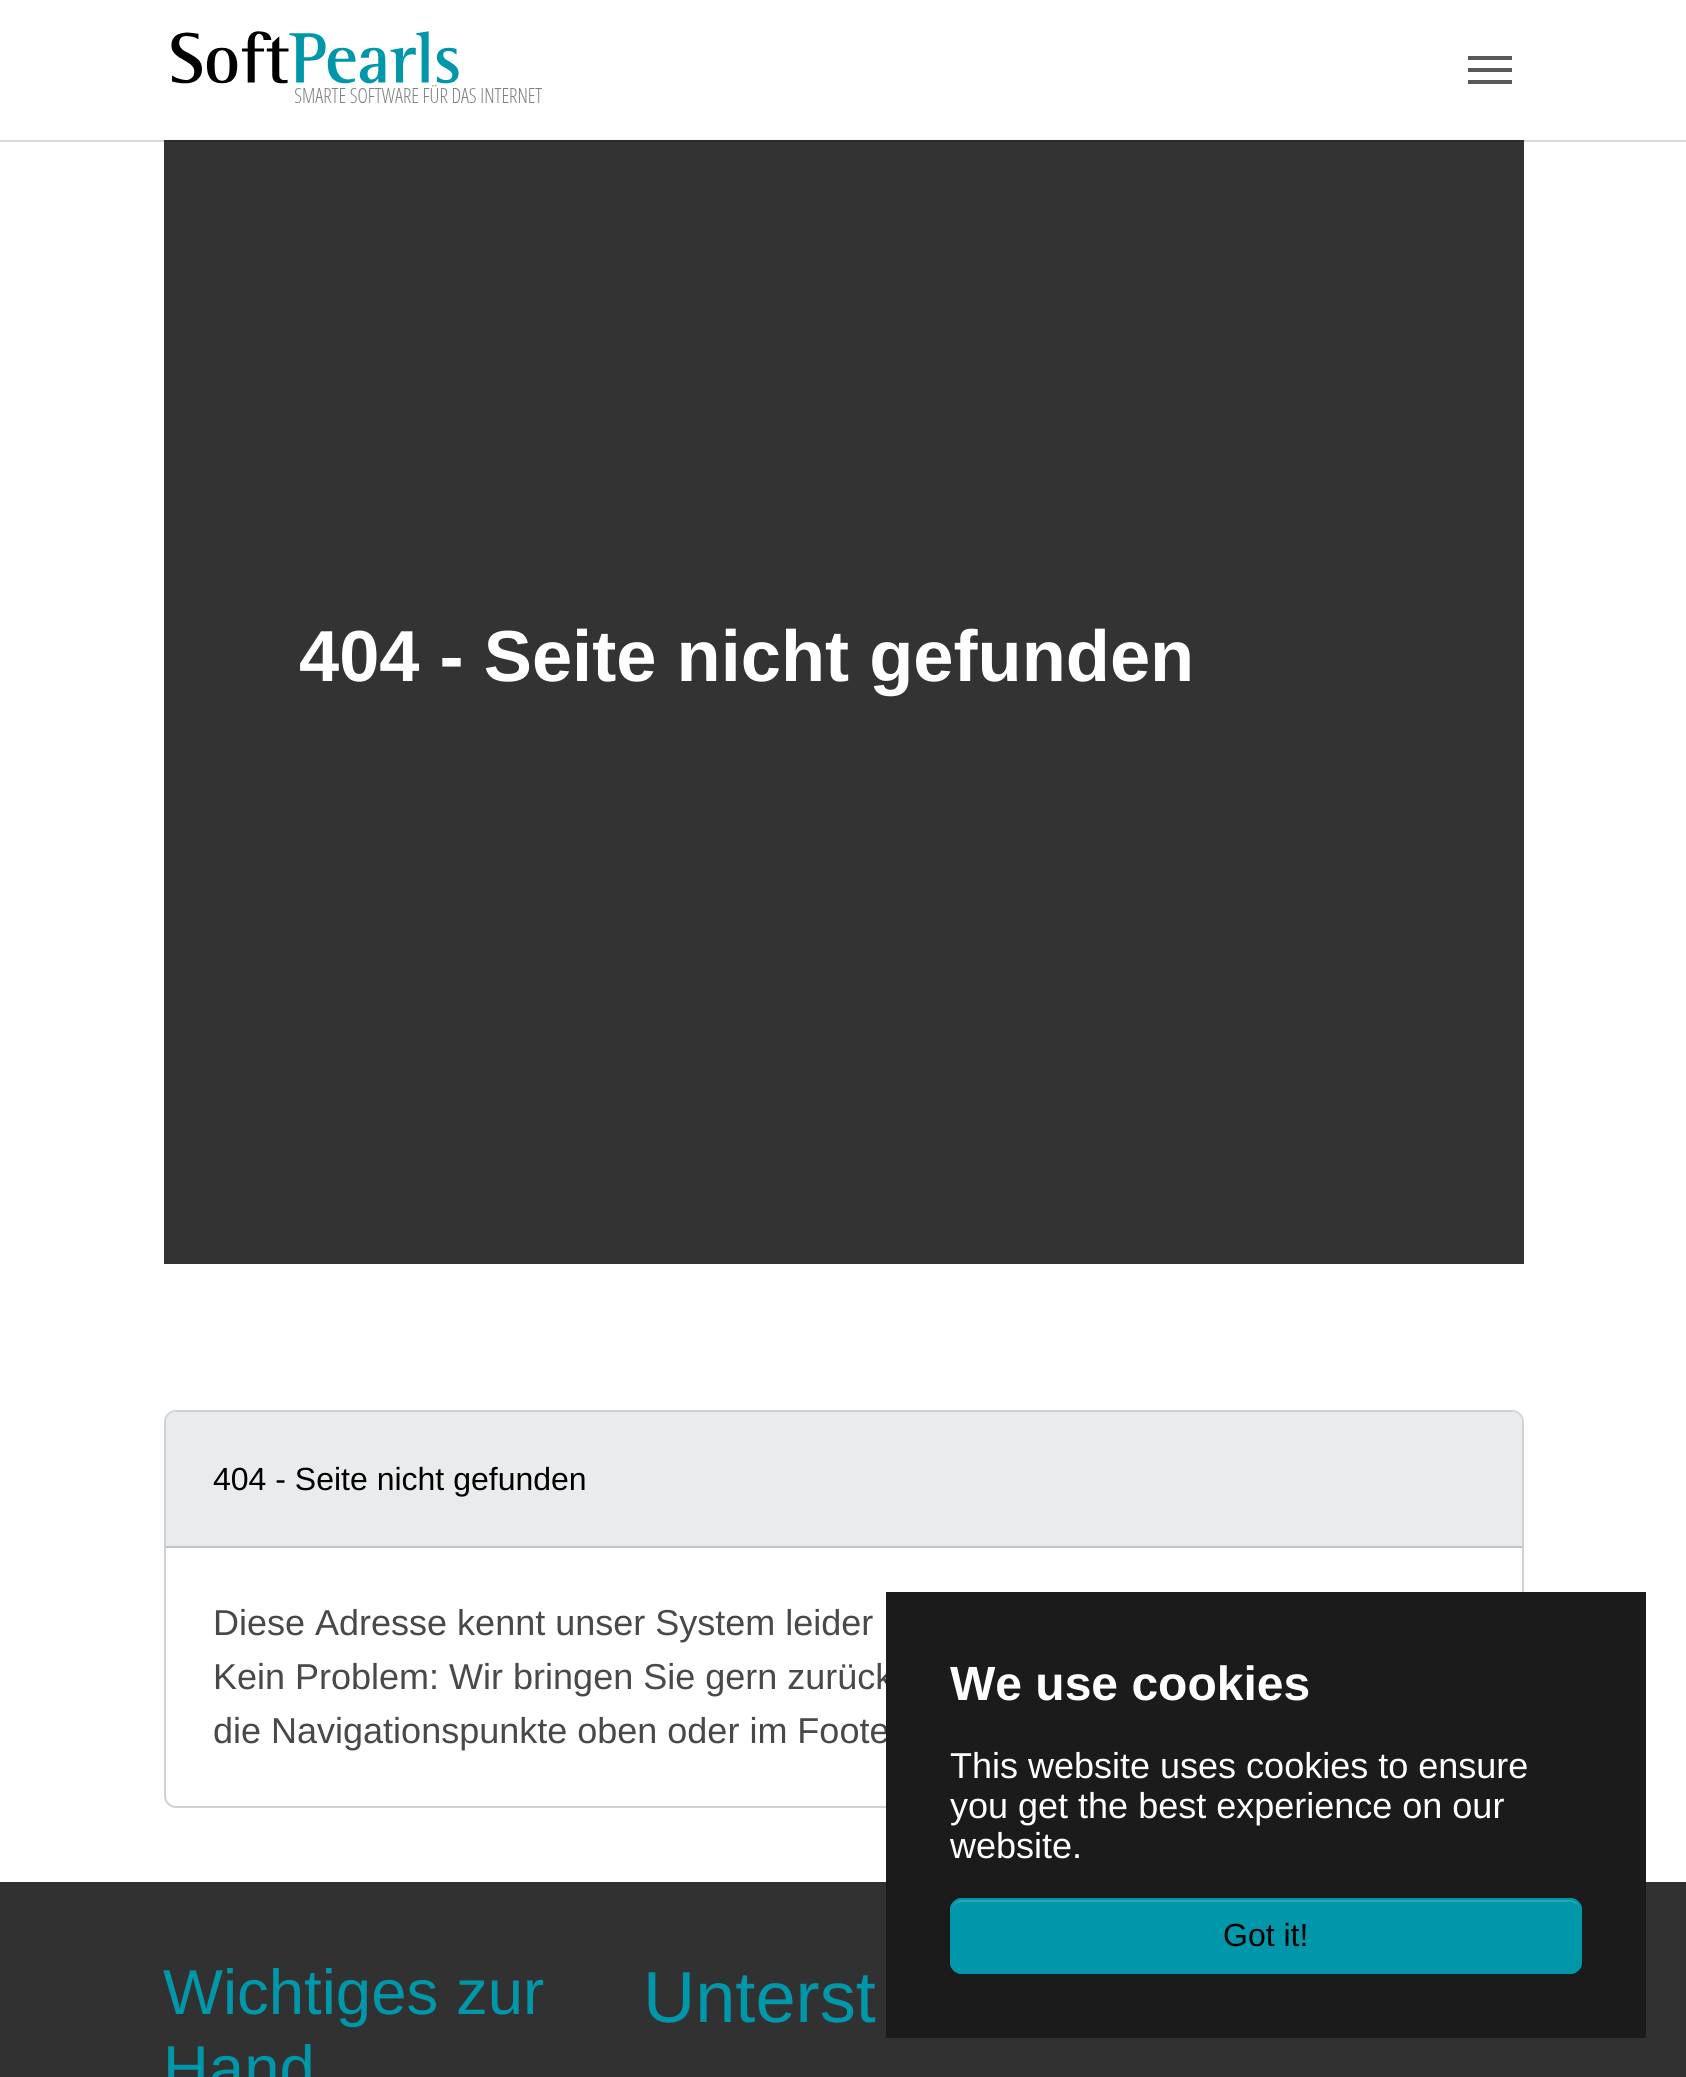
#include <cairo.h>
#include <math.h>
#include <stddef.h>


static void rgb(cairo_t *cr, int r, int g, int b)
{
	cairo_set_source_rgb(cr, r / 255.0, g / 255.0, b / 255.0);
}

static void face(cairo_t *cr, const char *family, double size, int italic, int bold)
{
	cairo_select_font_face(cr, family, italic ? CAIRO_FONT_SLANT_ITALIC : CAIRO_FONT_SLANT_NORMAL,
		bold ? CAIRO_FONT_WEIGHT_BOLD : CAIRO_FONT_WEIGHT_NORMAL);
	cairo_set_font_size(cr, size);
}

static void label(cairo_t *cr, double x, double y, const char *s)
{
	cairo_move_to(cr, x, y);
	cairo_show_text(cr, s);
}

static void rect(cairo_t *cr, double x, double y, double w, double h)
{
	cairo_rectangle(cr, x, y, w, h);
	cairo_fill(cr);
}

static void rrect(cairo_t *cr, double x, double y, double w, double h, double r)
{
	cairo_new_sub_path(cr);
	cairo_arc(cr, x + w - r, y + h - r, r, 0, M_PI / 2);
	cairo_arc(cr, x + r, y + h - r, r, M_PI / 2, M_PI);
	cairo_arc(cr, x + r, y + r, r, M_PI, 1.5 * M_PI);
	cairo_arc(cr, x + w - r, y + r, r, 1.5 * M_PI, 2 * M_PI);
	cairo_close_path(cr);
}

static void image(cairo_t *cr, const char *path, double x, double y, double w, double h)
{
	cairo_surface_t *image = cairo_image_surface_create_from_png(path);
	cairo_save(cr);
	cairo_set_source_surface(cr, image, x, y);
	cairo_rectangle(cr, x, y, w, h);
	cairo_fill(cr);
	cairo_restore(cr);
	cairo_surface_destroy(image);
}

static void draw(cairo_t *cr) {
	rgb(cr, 255, 255, 255);
	cairo_paint(cr);
	rgb(cr, 217, 217, 217);
	rect(cr, 0, 140, 1686, 2);
	image(cr, "image0.png", 171, 31, 371, 72);
	rgb(cr, 89, 89, 89);
	rect(cr, 1468, 68, 44, 4);
	rect(cr, 1468, 56, 44, 4);
	rect(cr, 1468, 80, 44, 4);
	rgb(cr, 51, 51, 51);
	rect(cr, 164, 142, 1360, 1122);
	rgb(cr, 43, 43, 43);
	rect(cr, 164, 140, 1360, 2);
	face(cr, "Liberation Sans", 72.25, 0, 1);
	rgb(cr, 255, 255, 255);
	label(cr, 299, 681, "404 - Seite nicht gefunden");
	rrect(cr, 165, 1411, 1358, 396, 11);
	rgb(cr, 207, 210, 212);
	cairo_stroke(cr);
	rgb(cr, 234, 235, 236);
	cairo_new_path(cr);
	cairo_move_to(cr, 176, 1412);
	cairo_line_to(cr, 1512, 1412);
	cairo_curve_to(cr, 1517.5, 1412, 1522, 1416.5, 1522, 1422);
	cairo_line_to(cr, 1522, 1548);
	cairo_line_to(cr, 166, 1548);
	cairo_line_to(cr, 166, 1422);
	cairo_curve_to(cr, 166, 1416.5, 170.5, 1412, 176, 1412);
	cairo_close_path(cr);
	cairo_fill(cr);
	rgb(cr, 193, 194, 194);
	rect(cr, 166, 1546, 1356, 2);
	face(cr, "Liberation Sans", 32, 0, 0);
	rgb(cr, 0, 0, 0);
	label(cr, 213, 1490, "404 - Seite nicht gefunden");
	face(cr, "Liberation Sans", 36, 0, 0);
	rgb(cr, 73, 73, 73);
	label(cr, 213, 1635, "Diese Adresse kennt unser System leider");
	label(cr, 213, 1689, "Kein Problem: Wir bringen Sie gern zurück");
	label(cr, 213, 1743, "die Navigationspunkte oben oder im Foote");
	rgb(cr, 49, 49, 49);
	rect(cr, 0, 1882, 1686, 195);
	rgb(cr, 27, 27, 27);
	rect(cr, 886, 1592, 760, 446);
	face(cr, "Liberation Sans", 48, 0, 1);
	rgb(cr, 255, 255, 255);
	label(cr, 950, 1700, "We use cookies");
	face(cr, "Liberation Sans", 36, 0, 0);
	label(cr, 950, 1778, "This website uses cookies to ensure");
	label(cr, 950, 1818, "you get the best experience on our");
	label(cr, 950, 1858, "website.");
	rgb(cr, 0, 151, 170);
	rrect(cr, 950, 1898, 632, 76, 12);
	cairo_fill(cr);
	rgb(cr, 38, 167, 183);
	cairo_new_path(cr);
	cairo_move_to(cr, 962, 1902);
	cairo_line_to(cr, 1570, 1902);
	cairo_curve_to(cr, 1576, 1902, 1580, 1906, 1580, 1912);
	cairo_curve_to(cr, 1580, 1906, 1577, 1900, 1570, 1900);
	cairo_line_to(cr, 962, 1900);
	cairo_curve_to(cr, 955, 1900, 952, 1906, 952, 1912);
	cairo_curve_to(cr, 952, 1906, 956, 1902, 962, 1902);
	cairo_close_path(cr);
	cairo_fill(cr);
	rrect(cr, 951, 1899, 630, 74, 11);
	rgb(cr, 0, 151, 170);
	cairo_stroke(cr);
	face(cr, "Liberation Sans", 32, 0, 0);
	rgb(cr, 0, 0, 0);
	label(cr, 1223, 1946, "Got it!");
	face(cr, "Liberation Sans", 63.5, 0, 0);
	rgb(cr, 0, 151, 170);
	label(cr, 163, 2014, "Wichtiges zur");
	label(cr, 163, 2090, "Hand");
	face(cr, "Liberation Sans", 72.25, 0, 0);
	label(cr, 643, 2022, "Unterst");
}

int main(void) {
	cairo_surface_t *surface = cairo_image_surface_create(CAIRO_FORMAT_RGB24, 1686, 2077);
	cairo_t *cr = cairo_create(surface);
	cairo_font_options_t *options = cairo_font_options_create();
	cairo_font_options_set_hint_metrics(options, CAIRO_HINT_METRICS_OFF);
	cairo_font_options_set_hint_style(options, CAIRO_HINT_STYLE_NONE);
	cairo_set_font_options(cr, options);
	cairo_set_miter_limit(cr, 4);
	draw(cr);
	cairo_surface_write_to_png(surface, "render.png");
	cairo_font_options_destroy(options);
	cairo_destroy(cr);
	cairo_surface_destroy(surface);
	return 0;
}
